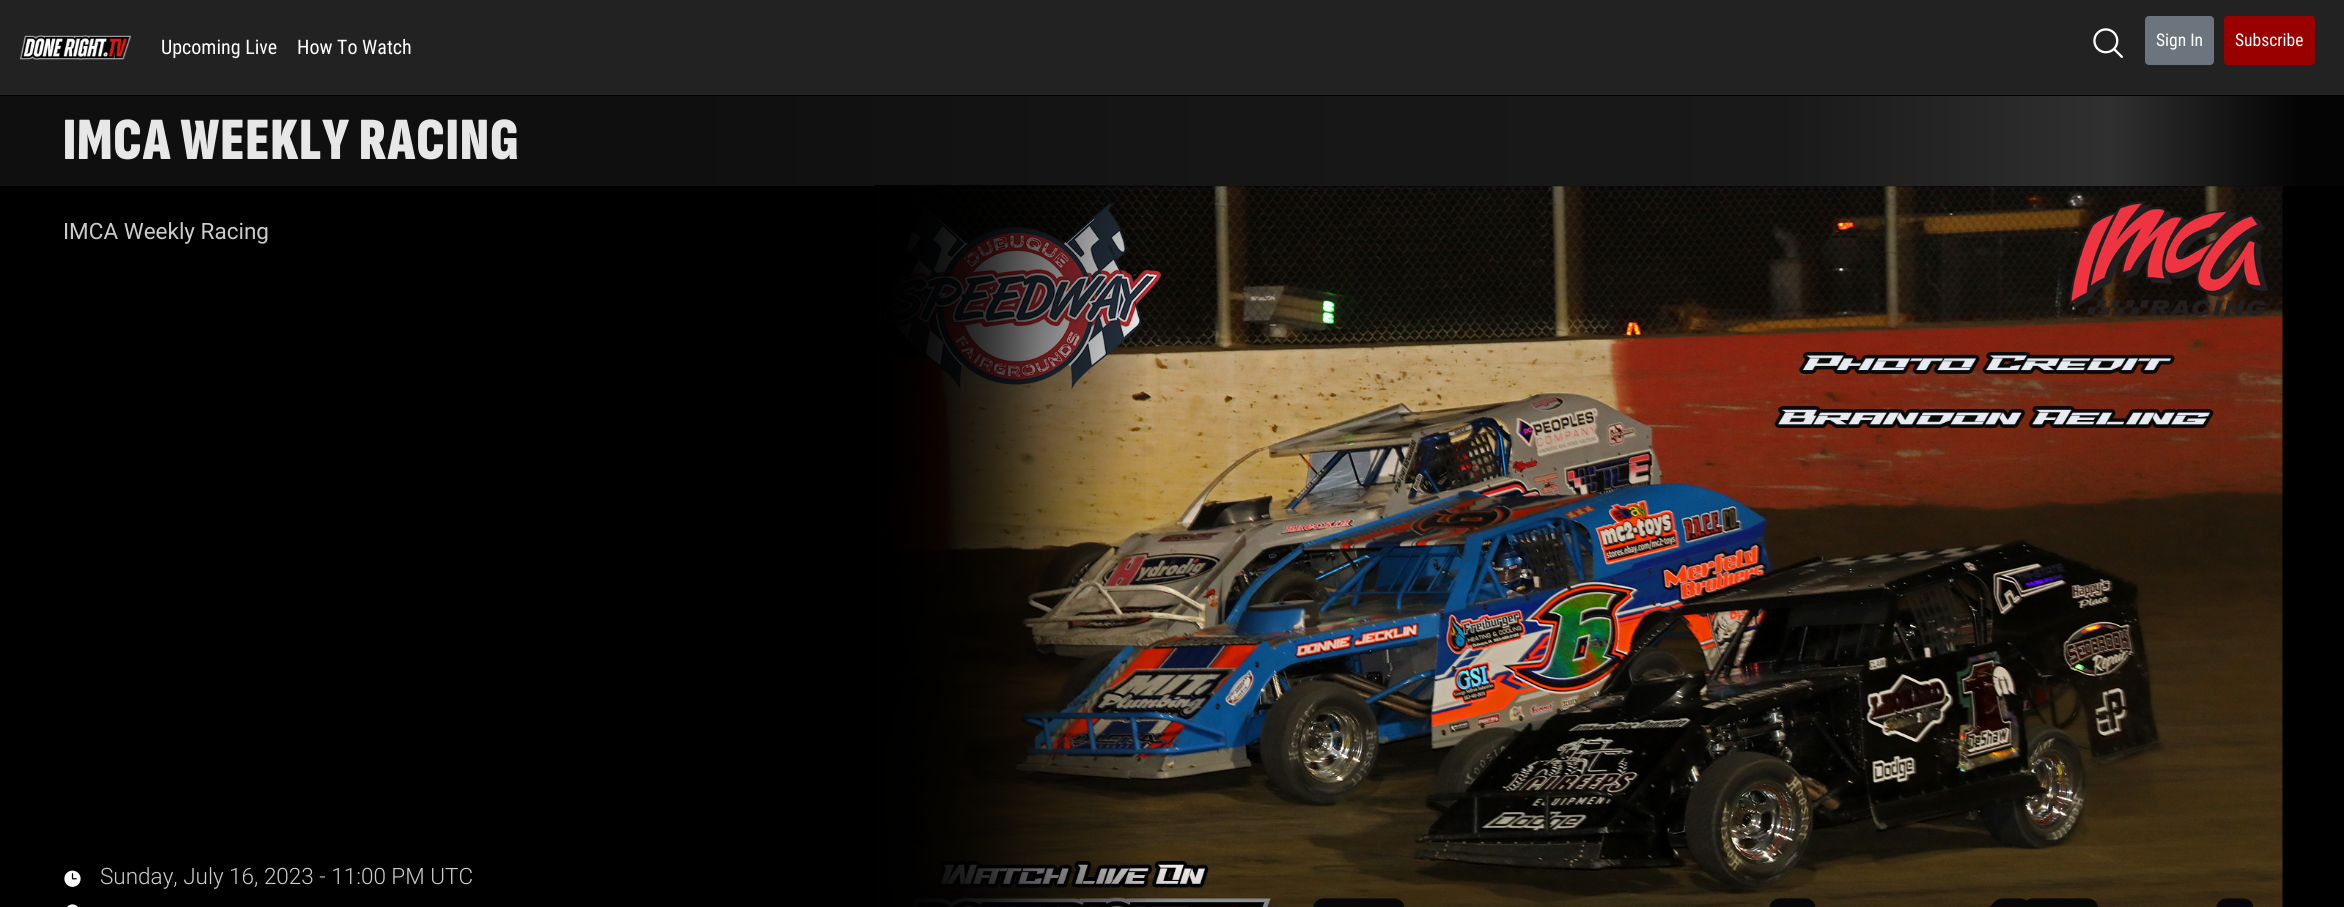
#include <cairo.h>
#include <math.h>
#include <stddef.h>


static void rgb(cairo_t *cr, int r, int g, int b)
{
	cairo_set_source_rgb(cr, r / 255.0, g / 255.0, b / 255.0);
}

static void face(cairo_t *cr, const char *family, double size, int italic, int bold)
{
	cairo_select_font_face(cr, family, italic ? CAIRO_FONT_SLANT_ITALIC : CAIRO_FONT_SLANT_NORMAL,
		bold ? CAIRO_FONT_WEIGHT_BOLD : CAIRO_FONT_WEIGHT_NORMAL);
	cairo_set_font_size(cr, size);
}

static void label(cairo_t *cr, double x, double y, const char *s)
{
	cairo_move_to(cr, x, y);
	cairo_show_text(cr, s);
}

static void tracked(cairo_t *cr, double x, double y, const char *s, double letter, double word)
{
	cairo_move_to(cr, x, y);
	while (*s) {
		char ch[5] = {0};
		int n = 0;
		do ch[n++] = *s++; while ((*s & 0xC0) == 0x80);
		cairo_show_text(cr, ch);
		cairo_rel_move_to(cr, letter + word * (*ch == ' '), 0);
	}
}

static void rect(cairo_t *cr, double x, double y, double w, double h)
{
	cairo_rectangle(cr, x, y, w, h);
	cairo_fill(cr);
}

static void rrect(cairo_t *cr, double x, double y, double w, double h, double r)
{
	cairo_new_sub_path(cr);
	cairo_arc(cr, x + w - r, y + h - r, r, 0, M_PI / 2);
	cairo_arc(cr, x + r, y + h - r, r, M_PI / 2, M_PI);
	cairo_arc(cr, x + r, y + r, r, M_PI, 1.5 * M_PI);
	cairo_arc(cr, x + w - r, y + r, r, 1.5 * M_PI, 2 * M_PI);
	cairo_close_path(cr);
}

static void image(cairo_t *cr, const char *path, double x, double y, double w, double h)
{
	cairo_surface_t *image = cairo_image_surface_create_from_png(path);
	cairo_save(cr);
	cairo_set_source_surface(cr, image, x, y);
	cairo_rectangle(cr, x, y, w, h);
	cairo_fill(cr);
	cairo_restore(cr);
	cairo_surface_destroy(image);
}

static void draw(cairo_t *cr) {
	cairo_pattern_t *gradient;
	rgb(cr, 0, 0, 0);
	cairo_paint(cr);
	rgb(cr, 34, 34, 34);
	rect(cr, 0, 0, 2344, 95);
	image(cr, "image0.png", 20, 35, 112, 25);
	face(cr, "Roboto Condensed", 20, 0, 0);
	rgb(cr, 255, 255, 255);
	label(cr, 161, 54, "Upcoming Live");
	label(cr, 297, 54, "How To Watch");
	image(cr, "image1.png", 2093, 28, 30, 30);
	rgb(cr, 108, 117, 125);
	rrect(cr, 2145.5, 16.5, 68, 48, 3.5);
	cairo_fill_preserve(cr);
	cairo_set_line_width(cr, 1);
	cairo_stroke(cr);
	face(cr, "Roboto Condensed", 17.5, 0, 0);
	rgb(cr, 255, 255, 255);
	label(cr, 2156, 46, "Sign In");
	rgb(cr, 153, 0, 0);
	rrect(cr, 2224.5, 16.5, 90, 48, 3.5);
	cairo_fill_preserve(cr);
	cairo_stroke(cr);
	rgb(cr, 255, 255, 255);
	label(cr, 2235, 46, "Subscribe");
	gradient = cairo_pattern_create_linear(0, 141, 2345, 141);
	cairo_pattern_add_color_stop_rgba(gradient, 0.29, 0.059, 0.059, 0.059, 1);
	cairo_pattern_add_color_stop_rgba(gradient, 0.52, 0.086, 0.086, 0.086, 1);
	cairo_pattern_add_color_stop_rgba(gradient, 0.76, 0.098, 0.098, 0.098, 1);
	cairo_pattern_add_color_stop_rgba(gradient, 0.9, 0.188, 0.188, 0.188, 1);
	cairo_pattern_add_color_stop_rgba(gradient, 0.98, 0.016, 0.016, 0.016, 1);
	cairo_set_source(cr, gradient);
	cairo_pattern_destroy(gradient);
	rect(cr, 0, 96, 2344, 90);
	face(cr, "Sofia Sans Extra Condensed Black", 60, 0, 0);
	rgb(cr, 231, 231, 231);
	tracked(cr, 63, 159, "IMCA WEEKLY RACING", 1.25, 0);
	face(cr, "Roboto", 22.5, 0, 0);
	rgb(cr, 204, 204, 204);
	label(cr, 63, 239, "IMCA Weekly Racing");
	image(cr, "image2.png", 64, 870, 17, 17);
	face(cr, "Roboto Light", 22.5, 0, 0);
	label(cr, 100, 884, "Sunday, July 16, 2023 - 11:00 PM UTC");
	image(cr, "image3.png", 67, 904, 11, 3);
	image(cr, "image4.png", 875, 186, 1408, 721);
	gradient = cairo_pattern_create_linear(1579, 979, 1579, 185);
	cairo_pattern_add_color_stop_rgba(gradient, 0, 0, 0, 0, 1);
	cairo_pattern_add_color_stop_rgba(gradient, 0.03, 0, 0, 0, 0.75);
	cairo_pattern_add_color_stop_rgba(gradient, 0.06, 0, 0, 0, 0.5);
	cairo_pattern_add_color_stop_rgba(gradient, 0.08, 0, 0, 0, 0.25);
	cairo_pattern_add_color_stop_rgba(gradient, 0.15, 0, 0, 0, 0);
	cairo_pattern_add_color_stop_rgba(gradient, 1, 0, 0, 0, 0);
	cairo_set_source(cr, gradient);
	cairo_pattern_destroy(gradient);
	rect(cr, 875, 865, 1408, 42);
	gradient = cairo_pattern_create_linear(874, 582, 2284, 582);
	cairo_pattern_add_color_stop_rgba(gradient, 0, 0, 0, 0, 1);
	cairo_pattern_add_color_stop_rgba(gradient, 0.04, 0, 0, 0, 0.7);
	cairo_pattern_add_color_stop_rgba(gradient, 0.08, 0, 0, 0, 0.5);
	cairo_pattern_add_color_stop_rgba(gradient, 0.12, 0, 0, 0, 0.25);
	cairo_pattern_add_color_stop_rgba(gradient, 0.2, 0, 0, 0, 0);
	cairo_pattern_add_color_stop_rgba(gradient, 1, 0, 0, 0, 0);
	cairo_set_source(cr, gradient);
	cairo_pattern_destroy(gradient);
	rect(cr, 874, 185, 272, 722);
	gradient = cairo_pattern_create_linear(822, 785, 2336, 379);
	cairo_pattern_add_color_stop_rgba(gradient, 0, 0, 0, 0, 1);
	cairo_pattern_add_color_stop_rgba(gradient, 0.05, 0, 0, 0, 0.75);
	cairo_pattern_add_color_stop_rgba(gradient, 0.1, 0, 0, 0, 0.5);
	cairo_pattern_add_color_stop_rgba(gradient, 0.2, 0, 0, 0, 0);
	cairo_pattern_add_color_stop_rgba(gradient, 1, 0, 0, 0, 0);
	cairo_set_source(cr, gradient);
	cairo_pattern_destroy(gradient);
	rect(cr, 880, 204, 292, 703);
	gradient = cairo_pattern_create_linear(822, 379, 2336, 785);
	cairo_pattern_add_color_stop_rgba(gradient, 0, 0, 0, 0, 1);
	cairo_pattern_add_color_stop_rgba(gradient, 0.05, 0, 0, 0, 0.75);
	cairo_pattern_add_color_stop_rgba(gradient, 0.1, 0, 0, 0, 0.5);
	cairo_pattern_add_color_stop_rgba(gradient, 0.2, 0, 0, 0, 0);
	cairo_pattern_add_color_stop_rgba(gradient, 1, 0, 0, 0, 0);
	cairo_set_source(cr, gradient);
	cairo_pattern_destroy(gradient);
	rect(cr, 881, 185, 286, 722);
}

int main(void) {
	cairo_surface_t *surface = cairo_image_surface_create(CAIRO_FORMAT_RGB24, 2344, 907);
	cairo_t *cr = cairo_create(surface);
	cairo_font_options_t *options = cairo_font_options_create();
	cairo_font_options_set_hint_metrics(options, CAIRO_HINT_METRICS_OFF);
	cairo_font_options_set_hint_style(options, CAIRO_HINT_STYLE_NONE);
	cairo_set_font_options(cr, options);
	cairo_set_miter_limit(cr, 4);
	draw(cr);
	cairo_surface_write_to_png(surface, "render.png");
	cairo_font_options_destroy(options);
	cairo_destroy(cr);
	cairo_surface_destroy(surface);
	return 0;
}
